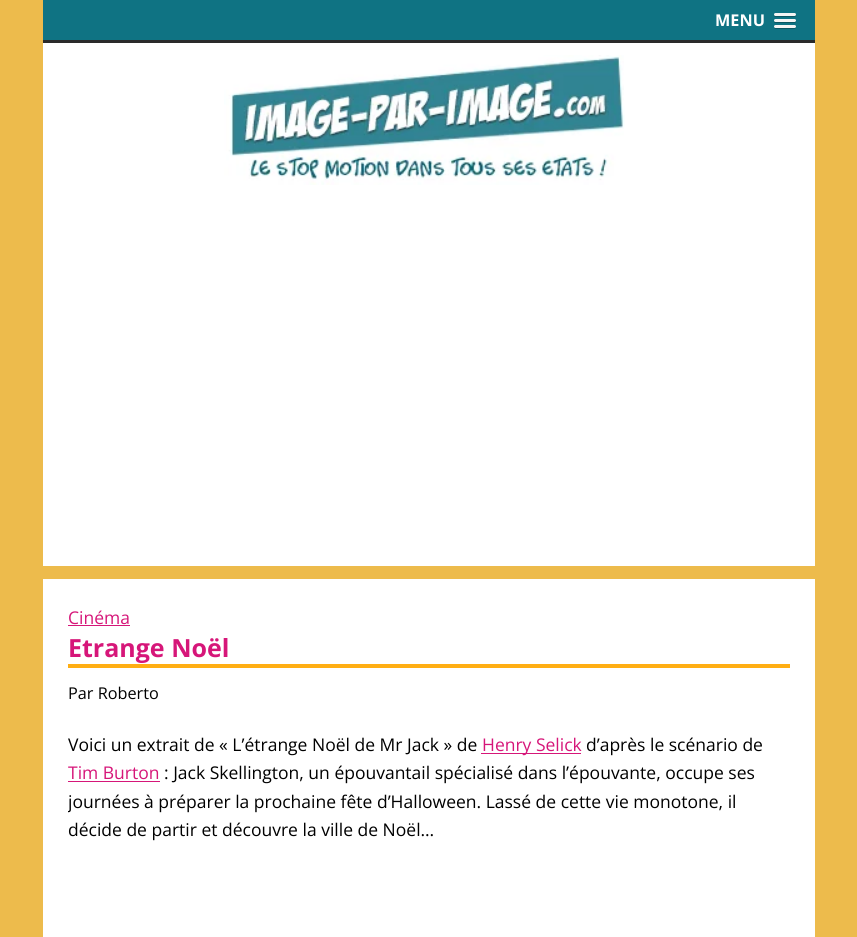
#include <cairo.h>
#include <math.h>
#include <stddef.h>


static void rgb(cairo_t *cr, int r, int g, int b)
{
	cairo_set_source_rgb(cr, r / 255.0, g / 255.0, b / 255.0);
}

static void face(cairo_t *cr, const char *family, double size, int italic, int bold)
{
	cairo_select_font_face(cr, family, italic ? CAIRO_FONT_SLANT_ITALIC : CAIRO_FONT_SLANT_NORMAL,
		bold ? CAIRO_FONT_WEIGHT_BOLD : CAIRO_FONT_WEIGHT_NORMAL);
	cairo_set_font_size(cr, size);
}

static void label(cairo_t *cr, double x, double y, const char *s)
{
	cairo_move_to(cr, x, y);
	cairo_show_text(cr, s);
}

static void rect(cairo_t *cr, double x, double y, double w, double h)
{
	cairo_rectangle(cr, x, y, w, h);
	cairo_fill(cr);
}

static void rrect(cairo_t *cr, double x, double y, double w, double h, double r)
{
	cairo_new_sub_path(cr);
	cairo_arc(cr, x + w - r, y + h - r, r, 0, M_PI / 2);
	cairo_arc(cr, x + r, y + h - r, r, M_PI / 2, M_PI);
	cairo_arc(cr, x + r, y + r, r, M_PI, 1.5 * M_PI);
	cairo_arc(cr, x + w - r, y + r, r, 1.5 * M_PI, 2 * M_PI);
	cairo_close_path(cr);
}

static void image(cairo_t *cr, const char *path, double x, double y, double w, double h)
{
	cairo_surface_t *image = cairo_image_surface_create_from_png(path);
	cairo_save(cr);
	cairo_set_source_surface(cr, image, x, y);
	cairo_rectangle(cr, x, y, w, h);
	cairo_fill(cr);
	cairo_restore(cr);
	cairo_surface_destroy(image);
}

static void draw(cairo_t *cr) {
	rgb(cr, 237, 187, 76);
	cairo_paint(cr);
	rgb(cr, 15, 115, 131);
	rect(cr, 43, 0, 772, 40);
	rgb(cr, 42, 42, 42);
	rect(cr, 43, 40, 772, 3);
	face(cr, "Open Sans", 16.25, 0, 1);
	rgb(cr, 255, 255, 255);
	label(cr, 715, 26, "MENU");
	rgb(cr, 11, 86, 98);
	cairo_new_path(cr);
	cairo_move_to(cr, 774, 14.5);
	cairo_curve_to(cr, 772.5, 17.5, 778, 17, 778.5, 17);
	cairo_line_to(cr, 791.5, 17);
	cairo_curve_to(cr, 792, 17, 797.5, 17.5, 796, 14.5);
	cairo_curve_to(cr, 795, 15, 775, 15, 774, 14.5);
	cairo_close_path(cr);
	cairo_fill(cr);
	rgb(cr, 245, 245, 245);
	rrect(cr, 774, 13, 22, 3, 1.5);
	cairo_fill(cr);
	rgb(cr, 11, 86, 98);
	cairo_new_path(cr);
	cairo_move_to(cr, 774, 21);
	cairo_curve_to(cr, 773, 23.5, 778, 23, 778.5, 23);
	cairo_line_to(cr, 791.5, 23);
	cairo_curve_to(cr, 792, 23, 797, 23.5, 796, 21);
	cairo_curve_to(cr, 795, 21.5, 775, 21.5, 774, 21);
	cairo_close_path(cr);
	cairo_fill(cr);
	rgb(cr, 245, 245, 245);
	rrect(cr, 774, 19, 22, 3, 1.5);
	cairo_fill(cr);
	rgb(cr, 11, 86, 98);
	cairo_new_path(cr);
	cairo_move_to(cr, 774, 27);
	cairo_curve_to(cr, 773.5, 29.5, 778, 29, 778.5, 29);
	cairo_line_to(cr, 791.5, 29);
	cairo_curve_to(cr, 792, 29, 796.5, 29.5, 796, 27);
	cairo_curve_to(cr, 795, 28, 775, 28, 774, 27);
	cairo_close_path(cr);
	cairo_fill(cr);
	rgb(cr, 245, 245, 245);
	rrect(cr, 774, 25, 22, 3, 1.5);
	cairo_fill(cr);
	rgb(cr, 255, 255, 255);
	rect(cr, 43, 43, 772, 523);
	image(cr, "image0.png", 224, 55, 401, 130);
	rect(cr, 43, 579, 772, 358);
	face(cr, "Open Sans", 17.5, 0, 0);
	rgb(cr, 214, 22, 121);
	label(cr, 68, 624, "Cinéma");
	rect(cr, 68, 625, 62, 1);
	rgb(cr, 255, 174, 19);
	rect(cr, 68, 664, 722, 4);
	face(cr, "Open Sans", 25, 0, 1);
	rgb(cr, 214, 22, 121);
	label(cr, 68, 657, "Etrange Noël");
	face(cr, "Open Sans", 16.25, 0, 0);
	rgb(cr, 0, 0, 0);
	label(cr, 68, 699, "Par Roberto");
	face(cr, "Open Sans", 17.5, 0, 0);
	label(cr, 68, 751, "Voici un extrait de « L’étrange Noël de Mr Jack » de");
	rgb(cr, 214, 22, 121);
	rect(cr, 481, 753, 100, 1);
	label(cr, 482, 751, "Henry Selick");
	rgb(cr, 0, 0, 0);
	label(cr, 586, 751, "d’après le scénario de");
	rgb(cr, 214, 22, 121);
	label(cr, 68, 779, "Tim Burton");
	rect(cr, 68, 781, 92, 1);
	rgb(cr, 0, 0, 0);
	label(cr, 164, 779, ": Jack Skellington, un épouvantail spécialisé dans l’épouvante, occupe ses");
	cairo_save(cr);
	cairo_rectangle(cr, 68, 604, 722, 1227);
	cairo_clip(cr);
	label(cr, 68, 808, "journées à préparer la prochaine fête d’Halloween. Lassé de cette vie monotone, il");
	cairo_restore(cr);
	label(cr, 68, 836, "décide de partir et découvre la ville de Noël…");
}

int main(void) {
	cairo_surface_t *surface = cairo_image_surface_create(CAIRO_FORMAT_RGB24, 857, 937);
	cairo_t *cr = cairo_create(surface);
	cairo_font_options_t *options = cairo_font_options_create();
	cairo_font_options_set_hint_metrics(options, CAIRO_HINT_METRICS_OFF);
	cairo_font_options_set_hint_style(options, CAIRO_HINT_STYLE_NONE);
	cairo_set_font_options(cr, options);
	cairo_set_miter_limit(cr, 4);
	draw(cr);
	cairo_surface_write_to_png(surface, "render.png");
	cairo_font_options_destroy(options);
	cairo_destroy(cr);
	cairo_surface_destroy(surface);
	return 0;
}
